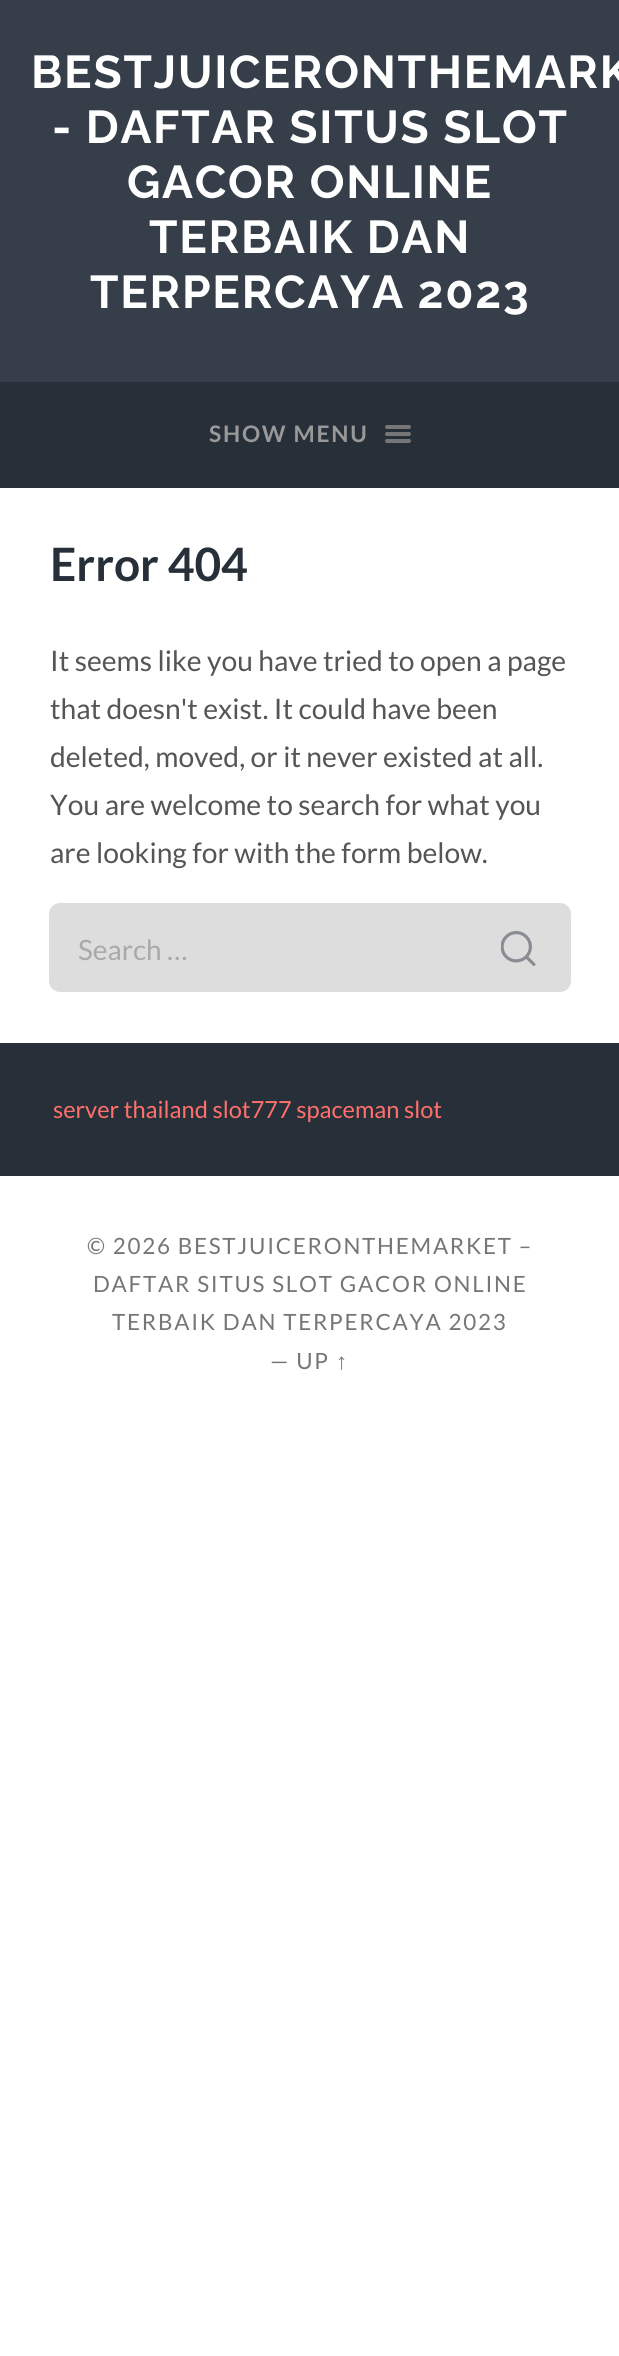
#include <cairo.h>
#include <math.h>
#include <stddef.h>


static void rgb(cairo_t *cr, int r, int g, int b)
{
	cairo_set_source_rgb(cr, r / 255.0, g / 255.0, b / 255.0);
}

static void face(cairo_t *cr, const char *family, double size, int italic, int bold)
{
	cairo_select_font_face(cr, family, italic ? CAIRO_FONT_SLANT_ITALIC : CAIRO_FONT_SLANT_NORMAL,
		bold ? CAIRO_FONT_WEIGHT_BOLD : CAIRO_FONT_WEIGHT_NORMAL);
	cairo_set_font_size(cr, size);
}

static void label(cairo_t *cr, double x, double y, const char *s)
{
	cairo_move_to(cr, x, y);
	cairo_show_text(cr, s);
}

static void tracked(cairo_t *cr, double x, double y, const char *s, double letter, double word)
{
	cairo_move_to(cr, x, y);
	while (*s) {
		char ch[5] = {0};
		int n = 0;
		do ch[n++] = *s++; while ((*s & 0xC0) == 0x80);
		cairo_show_text(cr, ch);
		cairo_rel_move_to(cr, letter + word * (*ch == ' '), 0);
	}
}

static void rect(cairo_t *cr, double x, double y, double w, double h)
{
	cairo_rectangle(cr, x, y, w, h);
	cairo_fill(cr);
}

static void rrect(cairo_t *cr, double x, double y, double w, double h, double r)
{
	cairo_new_sub_path(cr);
	cairo_arc(cr, x + w - r, y + h - r, r, 0, M_PI / 2);
	cairo_arc(cr, x + r, y + h - r, r, M_PI / 2, M_PI);
	cairo_arc(cr, x + r, y + r, r, M_PI, 1.5 * M_PI);
	cairo_arc(cr, x + w - r, y + r, r, 1.5 * M_PI, 2 * M_PI);
	cairo_close_path(cr);
}

static void image(cairo_t *cr, const char *path, double x, double y, double w, double h)
{
	cairo_surface_t *image = cairo_image_surface_create_from_png(path);
	cairo_save(cr);
	cairo_set_source_surface(cr, image, x, y);
	cairo_rectangle(cr, x, y, w, h);
	cairo_fill(cr);
	cairo_restore(cr);
	cairo_surface_destroy(image);
}

static void draw(cairo_t *cr) {
	rgb(cr, 255, 255, 255);
	cairo_paint(cr);
	rgb(cr, 53, 62, 73);
	rect(cr, 0, 0, 619, 382);
	face(cr, "Raleway Thin", 46, 0, 0);
	rgb(cr, 255, 255, 255);
	tracked(cr, 31, 88, "BESTJUICERONTHEMARK", 1.75, 0);
	tracked(cr, 52, 143, "- DAFTAR SITUS SLOT", 1.75, 0);
	tracked(cr, 127, 198, "GACOR ONLINE", 1.75, 0);
	tracked(cr, 149, 253, "TERBAIK DAN", 1.75, 0);
	tracked(cr, 90, 308, "TERPERCAYA 2023", 1.75, 0);
	rgb(cr, 39, 47, 56);
	rect(cr, 0, 382, 619, 106);
	face(cr, "Lato", 22.75, 0, 1);
	rgb(cr, 153, 153, 153);
	tracked(cr, 209, 442, "SHOW MENU", 1.75, 0);
	rgb(cr, 118, 118, 118);
	rrect(cr, 385, 425, 26, 4, 2);
	cairo_fill(cr);
	rrect(cr, 385, 432, 26, 4, 2);
	cairo_fill(cr);
	rrect(cr, 385, 439, 26, 4, 2);
	cairo_fill(cr);
	face(cr, "Lato", 46, 0, 1);
	rgb(cr, 39, 47, 56);
	label(cr, 50, 581, "Error 404");
	face(cr, "Lato", 28.25, 0, 0);
	rgb(cr, 85, 85, 85);
	label(cr, 50, 671, "It seems like you have tried to open a page");
	label(cr, 50, 719, "that doesn't exist. It could have been");
	label(cr, 50, 767, "deleted, moved, or it never existed at all.");
	label(cr, 50, 815, "You are welcome to search for what you");
	label(cr, 50, 863, "are looking for with the form below.");
	rgb(cr, 221, 221, 221);
	rrect(cr, 49, 903, 522, 89, 11);
	cairo_fill(cr);
	face(cr, "Lato", 28, 0, 0);
	rgb(cr, 169, 169, 169);
	label(cr, 78, 960, "Search …");
	image(cr, "image0.png", 501, 931, 35, 35);
	rgb(cr, 39, 47, 56);
	rect(cr, 0, 1043, 619, 133);
	face(cr, "Lato", 23.6, 0, 0);
	rgb(cr, 255, 112, 108);
	label(cr, 53, 1118, "server thailand slot777 spaceman slot");
	face(cr, "Lato", 22.4, 0, 0);
	rgb(cr, 118, 118, 118);
	tracked(cr, 87, 1254, "© 2026 BESTJUICERONTHEMARKET –", 1.75, 0);
	tracked(cr, 93, 1292, "DAFTAR SITUS SLOT GACOR ONLINE", 1.75, 0);
	tracked(cr, 112, 1330, "TERBAIK DAN TERPERCAYA 2023", 1.75, 0);
	tracked(cr, 270, 1369, "— UP", 1.75, 0);
	face(cr, "Liberation Sans", 22.4, 0, 0);
	tracked(cr, 336, 1369, "↑", 1.75, 0);
}

int main(void) {
	cairo_surface_t *surface = cairo_image_surface_create(CAIRO_FORMAT_RGB24, 619, 2356);
	cairo_t *cr = cairo_create(surface);
	cairo_font_options_t *options = cairo_font_options_create();
	cairo_font_options_set_hint_metrics(options, CAIRO_HINT_METRICS_OFF);
	cairo_font_options_set_hint_style(options, CAIRO_HINT_STYLE_NONE);
	cairo_set_font_options(cr, options);
	cairo_set_miter_limit(cr, 4);
	draw(cr);
	cairo_surface_write_to_png(surface, "render.png");
	cairo_font_options_destroy(options);
	cairo_destroy(cr);
	cairo_surface_destroy(surface);
	return 0;
}
